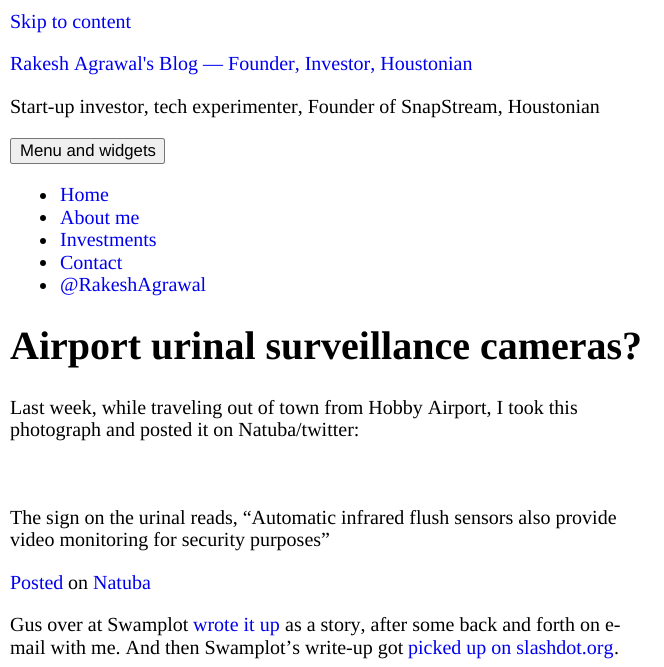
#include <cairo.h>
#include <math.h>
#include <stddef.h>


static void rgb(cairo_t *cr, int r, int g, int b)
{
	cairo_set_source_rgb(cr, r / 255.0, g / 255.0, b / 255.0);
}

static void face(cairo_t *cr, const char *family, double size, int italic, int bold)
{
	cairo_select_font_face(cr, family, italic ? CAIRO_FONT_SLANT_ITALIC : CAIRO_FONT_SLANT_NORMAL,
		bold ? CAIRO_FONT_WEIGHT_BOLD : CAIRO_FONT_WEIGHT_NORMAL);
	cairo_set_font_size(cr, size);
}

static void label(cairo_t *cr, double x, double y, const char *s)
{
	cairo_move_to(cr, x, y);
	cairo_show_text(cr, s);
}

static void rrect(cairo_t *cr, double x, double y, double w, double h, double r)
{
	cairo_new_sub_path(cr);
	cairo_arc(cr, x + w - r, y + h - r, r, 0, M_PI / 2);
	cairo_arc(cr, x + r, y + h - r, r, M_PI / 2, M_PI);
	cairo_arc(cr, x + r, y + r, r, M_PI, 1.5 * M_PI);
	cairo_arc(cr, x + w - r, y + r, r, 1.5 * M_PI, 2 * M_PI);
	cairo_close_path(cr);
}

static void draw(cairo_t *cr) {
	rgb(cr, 255, 255, 255);
	cairo_paint(cr);
	face(cr, "Liberation Serif", 20, 0, 0);
	rgb(cr, 0, 0, 238);
	label(cr, 10, 28, "Skip to content");
	label(cr, 10, 70, "Rakesh Agrawal's Blog — Founder, Investor, Houstonian");
	rgb(cr, 0, 0, 0);
	label(cr, 10, 113, "Start-up investor, tech experimenter, Founder of SnapStream, Houstonian");
	rgb(cr, 239, 239, 239);
	rrect(cr, 10.5, 138.5, 154, 25, 2);
	cairo_fill_preserve(cr);
	rgb(cr, 118, 118, 118);
	cairo_set_line_width(cr, 1);
	cairo_stroke(cr);
	face(cr, "Liberation Sans", 16.75, 0, 0);
	rgb(cr, 0, 0, 0);
	label(cr, 20, 156, "Menu and widgets");
	cairo_new_path(cr);
	cairo_arc(cr, 43, 196, 3, 0, 2 * M_PI);
	cairo_fill(cr);
	face(cr, "Liberation Serif", 20, 0, 0);
	rgb(cr, 0, 0, 238);
	label(cr, 60, 201, "Home");
	rgb(cr, 0, 0, 0);
	cairo_new_path(cr);
	cairo_arc(cr, 43, 218, 3, 0, 2 * M_PI);
	cairo_fill(cr);
	rgb(cr, 0, 0, 238);
	label(cr, 60, 224, "About me");
	rgb(cr, 0, 0, 0);
	cairo_new_path(cr);
	cairo_arc(cr, 43, 241, 3, 0, 2 * M_PI);
	cairo_fill(cr);
	rgb(cr, 0, 0, 238);
	label(cr, 60, 246, "Investments");
	rgb(cr, 0, 0, 0);
	cairo_new_path(cr);
	cairo_arc(cr, 43, 263, 3, 0, 2 * M_PI);
	cairo_fill(cr);
	rgb(cr, 0, 0, 238);
	label(cr, 60, 269, "Contact");
	rgb(cr, 0, 0, 0);
	cairo_new_path(cr);
	cairo_arc(cr, 43, 286, 3, 0, 2 * M_PI);
	cairo_fill(cr);
	rgb(cr, 0, 0, 238);
	label(cr, 60, 291, "@RakeshAgrawal");
	face(cr, "Liberation Serif", 40, 0, 1);
	rgb(cr, 0, 0, 0);
	label(cr, 10, 359, "Airport urinal surveillance cameras?");
	face(cr, "Liberation Serif", 20, 0, 0);
	label(cr, 10, 414, "Last week, while traveling out of town from Hobby Airport, I took this");
	label(cr, 10, 436, "photograph and posted it on Natuba/twitter:");
	label(cr, 10, 524, "The sign on the urinal reads, “Automatic infrared flush sensors also provide");
	label(cr, 10, 546, "video monitoring for security purposes”");
	rgb(cr, 0, 0, 238);
	label(cr, 10, 589, "Posted");
	rgb(cr, 0, 0, 0);
	label(cr, 68, 589, "on");
	rgb(cr, 0, 0, 238);
	label(cr, 93, 589, "Natuba");
	rgb(cr, 0, 0, 0);
	label(cr, 10, 631, "Gus over at Swamplot");
	rgb(cr, 0, 0, 238);
	label(cr, 193, 631, "wrote it up");
	rgb(cr, 0, 0, 0);
	label(cr, 285, 631, "as a story, after some back and forth on e-");
	label(cr, 10, 654, "mail with me. And then Swamplot’s write-up got");
	rgb(cr, 0, 0, 238);
	label(cr, 408, 654, "picked up on slashdot.org");
	rgb(cr, 0, 0, 0);
	label(cr, 614, 654, ".");
}

int main(void) {
	cairo_surface_t *surface = cairo_image_surface_create(CAIRO_FORMAT_RGB24, 664, 667);
	cairo_t *cr = cairo_create(surface);
	cairo_font_options_t *options = cairo_font_options_create();
	cairo_font_options_set_hint_metrics(options, CAIRO_HINT_METRICS_OFF);
	cairo_font_options_set_hint_style(options, CAIRO_HINT_STYLE_NONE);
	cairo_set_font_options(cr, options);
	cairo_set_miter_limit(cr, 4);
	draw(cr);
	cairo_surface_write_to_png(surface, "render.png");
	cairo_font_options_destroy(options);
	cairo_destroy(cr);
	cairo_surface_destroy(surface);
	return 0;
}
